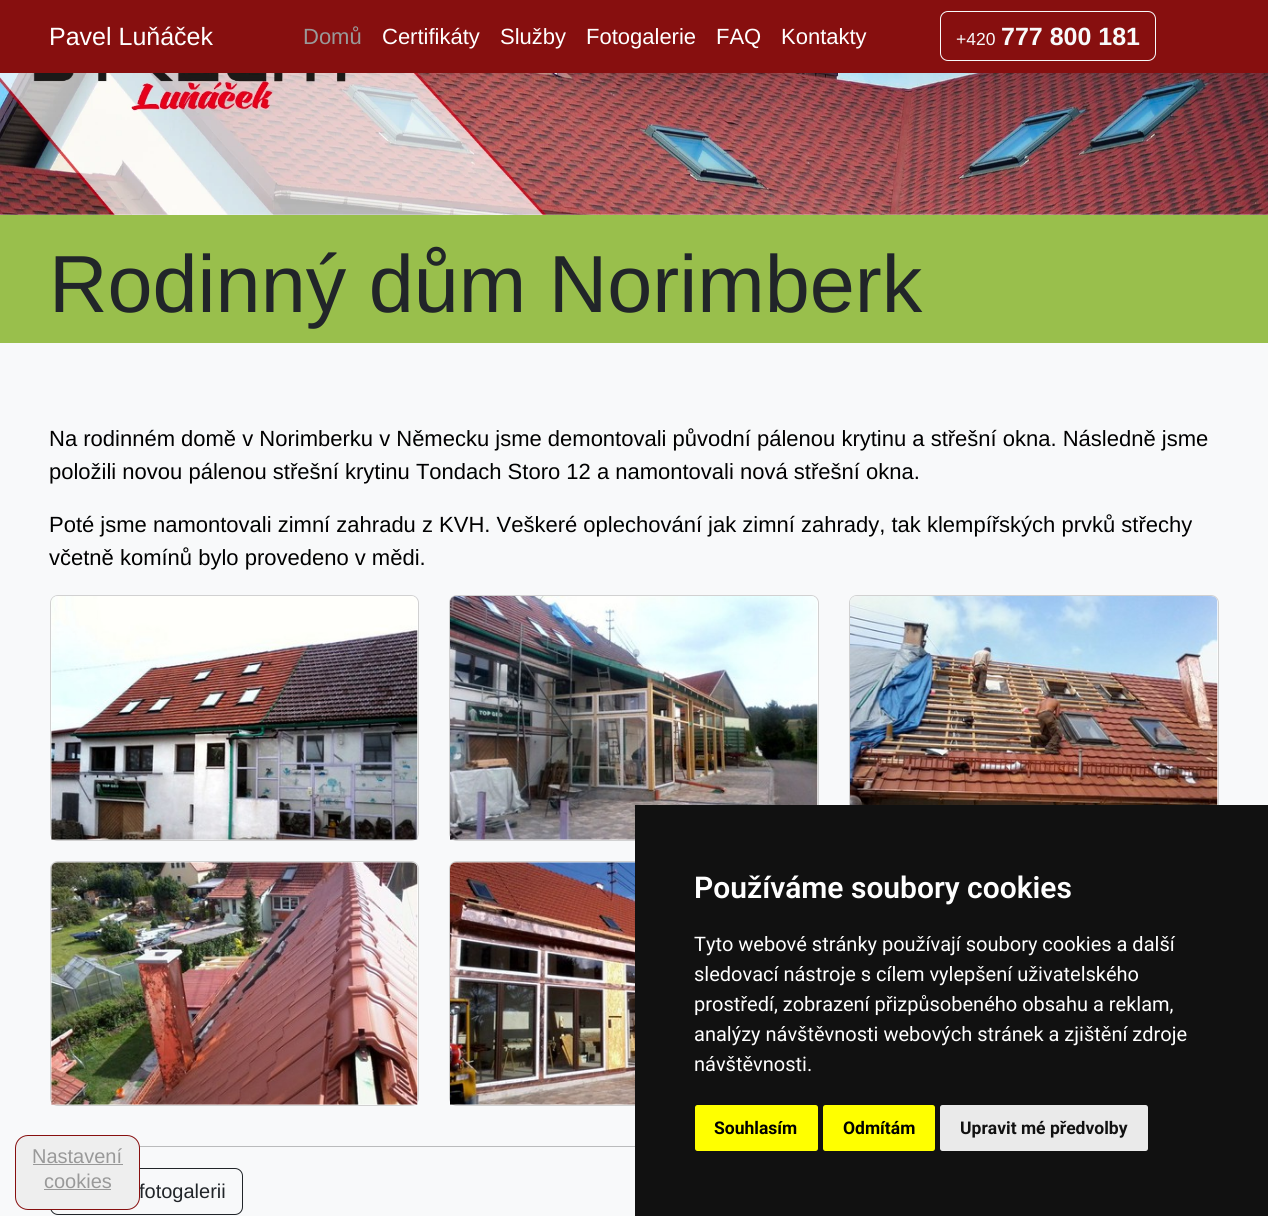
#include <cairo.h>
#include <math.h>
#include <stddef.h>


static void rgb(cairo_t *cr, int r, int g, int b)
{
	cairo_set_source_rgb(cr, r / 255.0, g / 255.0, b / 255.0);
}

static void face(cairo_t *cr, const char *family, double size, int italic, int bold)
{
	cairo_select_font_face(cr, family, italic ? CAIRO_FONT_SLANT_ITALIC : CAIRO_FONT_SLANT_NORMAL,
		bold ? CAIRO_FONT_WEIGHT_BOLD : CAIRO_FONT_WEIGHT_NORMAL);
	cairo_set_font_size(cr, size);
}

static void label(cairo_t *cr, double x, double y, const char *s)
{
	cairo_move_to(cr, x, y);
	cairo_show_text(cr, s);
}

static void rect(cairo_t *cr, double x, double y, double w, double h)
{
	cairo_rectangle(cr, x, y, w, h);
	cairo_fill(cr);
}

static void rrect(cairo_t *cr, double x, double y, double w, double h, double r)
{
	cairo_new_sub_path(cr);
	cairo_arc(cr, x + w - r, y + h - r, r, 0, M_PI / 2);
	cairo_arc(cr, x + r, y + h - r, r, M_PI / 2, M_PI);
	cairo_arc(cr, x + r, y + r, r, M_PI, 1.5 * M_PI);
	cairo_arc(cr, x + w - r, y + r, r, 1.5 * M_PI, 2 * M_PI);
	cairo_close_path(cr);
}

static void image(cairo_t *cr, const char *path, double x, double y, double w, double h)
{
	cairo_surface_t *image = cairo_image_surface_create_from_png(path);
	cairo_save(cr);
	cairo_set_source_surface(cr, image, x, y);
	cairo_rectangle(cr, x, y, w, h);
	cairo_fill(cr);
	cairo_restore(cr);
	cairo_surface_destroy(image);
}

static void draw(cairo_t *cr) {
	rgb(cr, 255, 255, 255);
	cairo_paint(cr);
	rgb(cr, 135, 15, 15);
	rect(cr, 0, 0, 1268, 73);
	face(cr, "Liberation Sans", 25, 0, 0);
	rgb(cr, 255, 255, 255);
	label(cr, 49, 45, "Pavel Luňáček");
	face(cr, "Liberation Sans", 22, 0, 0);
	rgb(cr, 153, 153, 153);
	label(cr, 303, 44, "Domů");
	rgb(cr, 255, 255, 255);
	label(cr, 382, 44, "Certifikáty");
	label(cr, 500, 44, "Služby");
	label(cr, 586, 44, "Fotogalerie");
	label(cr, 716, 44, "FAQ");
	label(cr, 781, 44, "Kontakty");
	rrect(cr, 940.5, 11.5, 215, 49, 7.5);
	rgb(cr, 248, 249, 250);
	cairo_set_line_width(cr, 1);
	cairo_stroke(cr);
	face(cr, "Liberation Sans", 17.5, 0, 0);
	label(cr, 956, 45, "+420");
	face(cr, "Liberation Sans", 25, 0, 1);
	label(cr, 1001, 45, "777 800 181");
	image(cr, "image0.png", 0, 73, 1268, 142);
	rgb(cr, 153, 191, 76);
	rect(cr, 0, 215, 1268, 128);
	face(cr, "Liberation Sans", 81, 0, 0);
	rgb(cr, 33, 37, 41);
	label(cr, 49, 312, "Rodinný dům Norimberk");
	rgb(cr, 248, 249, 250);
	rect(cr, 0, 343, 1268, 873);
	face(cr, "Liberation Sans", 22, 0, 0);
	rgb(cr, 0, 0, 0);
	label(cr, 49, 446, "Na rodinném domě v Norimberku v Německu jsme demontovali původní pálenou krytinu a střešní okna. Následně jsme");
	label(cr, 49, 479, "položili novou pálenou střešní krytinu Tondach Storo 12 a namontovali nová střešní okna.");
	label(cr, 49, 532, "Poté jsme namontovali zimní zahradu z KVH. Veškeré oplechování jak zimní zahrady, tak klempířských prvků střechy");
	label(cr, 49, 565, "včetně komínů bylo provedeno v mědi.");
	rgb(cr, 255, 255, 255);
	rrect(cr, 50, 595, 369, 246, 8);
	cairo_fill(cr);
	rrect(cr, 50.5, 595.5, 368, 245, 7.5);
	cairo_set_source_rgba(cr, 0, 0, 0, 0.18);
	cairo_stroke(cr);
	image(cr, "image1.png", 51, 596, 367, 244);
	rgb(cr, 255, 255, 255);
	rrect(cr, 449, 595, 370, 246, 8);
	cairo_fill(cr);
	rrect(cr, 449.5, 595.5, 369, 245, 7.5);
	cairo_set_source_rgba(cr, 0, 0, 0, 0.18);
	cairo_stroke(cr);
	image(cr, "image2.png", 450, 596, 368, 244);
	rgb(cr, 255, 255, 255);
	rrect(cr, 849, 595, 370, 246, 8);
	cairo_fill(cr);
	rrect(cr, 849.5, 595.5, 369, 245, 7.5);
	cairo_set_source_rgba(cr, 0, 0, 0, 0.18);
	cairo_stroke(cr);
	image(cr, "image3.png", 850, 596, 368, 209);
	rgb(cr, 255, 255, 255);
	rrect(cr, 50, 861, 369, 245, 8);
	cairo_fill(cr);
	rrect(cr, 50.5, 861.5, 368, 244, 7.5);
	cairo_set_source_rgba(cr, 0, 0, 0, 0.18);
	cairo_stroke(cr);
	image(cr, "image4.png", 51, 862, 367, 243);
	rgb(cr, 255, 255, 255);
	rrect(cr, 449, 861, 370, 245, 8);
	cairo_fill(cr);
	rrect(cr, 449.5, 861.5, 369, 244, 7.5);
	cairo_set_source_rgba(cr, 0, 0, 0, 0.18);
	cairo_stroke(cr);
	image(cr, "image5.png", 450, 862, 185, 243);
	rgb(cr, 186, 187, 188);
	rect(cr, 139, 1146, 496, 1);
	rrect(cr, 50.5, 1168.5, 192, 46, 7.5);
	rgb(cr, 33, 37, 41);
	cairo_stroke(cr);
	face(cr, "Liberation Sans", 20, 0, 0);
	label(cr, 139, 1198, "fotogalerii");
	rgb(cr, 238, 238, 238);
	rrect(cr, 15.5, 1135.5, 124, 74, 12.5);
	cairo_fill_preserve(cr);
	rgb(cr, 135, 15, 15);
	cairo_stroke(cr);
	rgb(cr, 153, 153, 153);
	label(cr, 32, 1163, "Nastavení");
	rect(cr, 33, 1164, 90, 1);
	label(cr, 44, 1188, "cookies");
	rect(cr, 44, 1189, 67, 1);
	rgb(cr, 17, 17, 17);
	rect(cr, 635, 805, 633, 411);
	face(cr, "Roboto SemiBold", 30, 0, 0);
	rgb(cr, 255, 255, 255);
	label(cr, 694, 898, "Používáme soubory cookies");
	face(cr, "Roboto", 20, 0, 0);
	label(cr, 694, 951, "Tyto webové stránky používají soubory cookies a další");
	label(cr, 694, 981, "sledovací nástroje s cílem vylepšení uživatelského");
	label(cr, 694, 1011, "prostředí, zobrazení přizpůsobeného obsahu a reklam,");
	label(cr, 694, 1041, "analýzy návštěvnosti webových stránek a zjištění zdroje");
	label(cr, 694, 1071, "návštěvnosti.");
	rgb(cr, 255, 255, 0);
	rrect(cr, 695, 1105, 123, 46, 2.5);
	cairo_fill(cr);
	face(cr, "Roboto", 17.5, 0, 1);
	rgb(cr, 0, 0, 0);
	label(cr, 714, 1134, "Souhlasím");
	rgb(cr, 255, 255, 0);
	rrect(cr, 823, 1105, 112, 46, 2.5);
	cairo_fill(cr);
	rgb(cr, 0, 0, 0);
	label(cr, 843, 1134, "Odmítám");
	rgb(cr, 234, 234, 234);
	rrect(cr, 940, 1105, 208, 46, 2.5);
	cairo_fill(cr);
	rgb(cr, 17, 17, 17);
	label(cr, 960, 1134, "Upravit mé předvolby");
}

int main(void) {
	cairo_surface_t *surface = cairo_image_surface_create(CAIRO_FORMAT_RGB24, 1268, 1216);
	cairo_t *cr = cairo_create(surface);
	cairo_font_options_t *options = cairo_font_options_create();
	cairo_font_options_set_hint_metrics(options, CAIRO_HINT_METRICS_OFF);
	cairo_font_options_set_hint_style(options, CAIRO_HINT_STYLE_NONE);
	cairo_set_font_options(cr, options);
	cairo_set_miter_limit(cr, 4);
	draw(cr);
	cairo_surface_write_to_png(surface, "render.png");
	cairo_font_options_destroy(options);
	cairo_destroy(cr);
	cairo_surface_destroy(surface);
	return 0;
}
